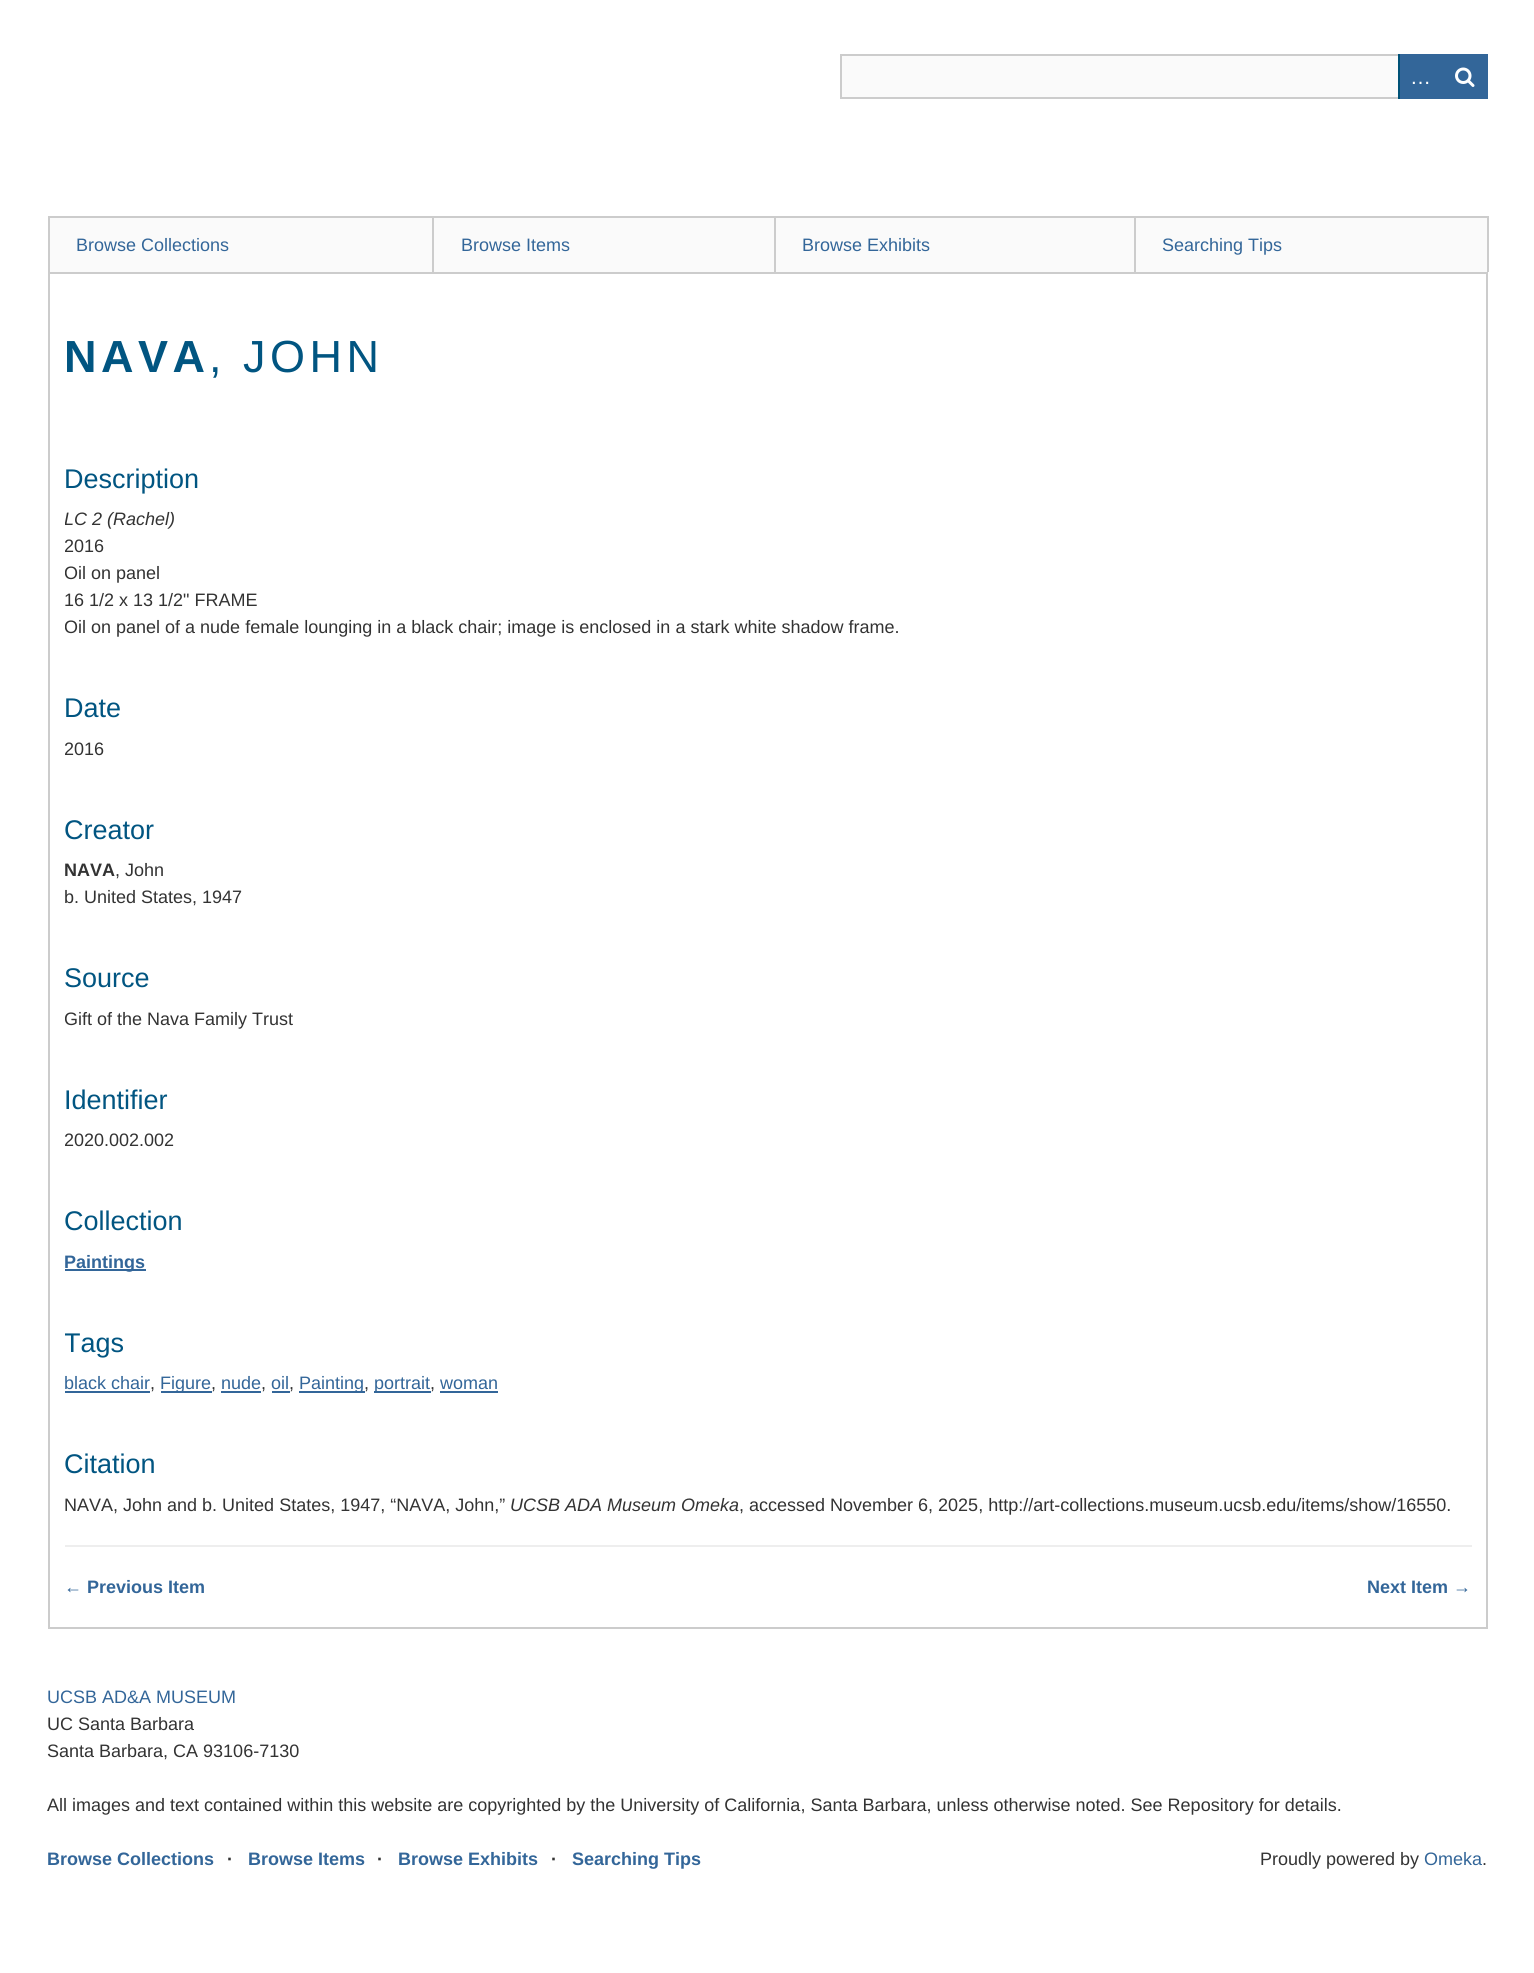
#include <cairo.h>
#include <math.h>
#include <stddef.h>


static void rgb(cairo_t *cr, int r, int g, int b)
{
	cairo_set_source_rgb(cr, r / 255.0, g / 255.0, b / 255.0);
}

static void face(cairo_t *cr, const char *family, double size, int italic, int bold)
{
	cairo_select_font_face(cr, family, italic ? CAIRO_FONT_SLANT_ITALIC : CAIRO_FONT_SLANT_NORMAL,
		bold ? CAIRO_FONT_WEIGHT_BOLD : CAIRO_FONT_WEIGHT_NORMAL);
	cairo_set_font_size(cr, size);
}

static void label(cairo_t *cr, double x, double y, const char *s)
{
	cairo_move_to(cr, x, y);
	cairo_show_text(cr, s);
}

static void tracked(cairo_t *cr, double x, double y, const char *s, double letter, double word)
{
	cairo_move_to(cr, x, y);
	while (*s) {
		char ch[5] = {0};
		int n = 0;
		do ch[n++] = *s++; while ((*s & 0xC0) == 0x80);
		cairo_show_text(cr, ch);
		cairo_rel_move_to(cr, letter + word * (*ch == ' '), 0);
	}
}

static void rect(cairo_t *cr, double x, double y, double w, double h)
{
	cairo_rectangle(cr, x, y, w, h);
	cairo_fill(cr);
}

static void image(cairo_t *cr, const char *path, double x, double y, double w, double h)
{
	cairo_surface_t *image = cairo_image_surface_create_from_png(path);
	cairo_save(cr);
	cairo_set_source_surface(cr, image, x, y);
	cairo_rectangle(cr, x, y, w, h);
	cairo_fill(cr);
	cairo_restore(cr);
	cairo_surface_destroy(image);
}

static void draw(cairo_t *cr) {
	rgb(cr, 255, 255, 255);
	cairo_paint(cr);
	rgb(cr, 250, 250, 250);
	rect(cr, 842, 56, 556, 41);
	cairo_rectangle(cr, 841, 55, 646, 43);
	rgb(cr, 204, 204, 204);
	cairo_stroke(cr);
	rgb(cr, 0, 81, 119);
	rect(cr, 1398, 54, 2, 45);
	rgb(cr, 51, 102, 153);
	rect(cr, 1400, 54, 88, 45);
	face(cr, "Liberation Sans", 21, 0, 0);
	rgb(cr, 255, 255, 255);
	label(cr, 1410, 84, "…");
	image(cr, "image0.png", 1455, 67, 20, 20);
	rgb(cr, 204, 204, 204);
	rect(cr, 1487, 216, 2, 56);
	rgb(cr, 250, 250, 250);
	rect(cr, 50, 218, 382, 54);
	rgb(cr, 204, 204, 204);
	rect(cr, 48, 216, 1439, 2);
	rect(cr, 48, 216, 2, 56);
	face(cr, "Liberation Sans", 18, 0, 0);
	rgb(cr, 51, 102, 153);
	label(cr, 76, 251, "Browse Collections");
	rgb(cr, 250, 250, 250);
	rect(cr, 434, 218, 340, 54);
	rgb(cr, 204, 204, 204);
	rect(cr, 432, 216, 2, 56);
	rgb(cr, 51, 102, 153);
	label(cr, 461, 251, "Browse Items");
	rgb(cr, 250, 250, 250);
	rect(cr, 776, 218, 358, 54);
	rgb(cr, 204, 204, 204);
	rect(cr, 774, 216, 2, 56);
	rgb(cr, 51, 102, 153);
	label(cr, 802, 251, "Browse Exhibits");
	rgb(cr, 250, 250, 250);
	rect(cr, 1136, 218, 351, 54);
	rgb(cr, 204, 204, 204);
	rect(cr, 1134, 216, 2, 56);
	rgb(cr, 51, 102, 153);
	label(cr, 1162, 251, "Searching Tips");
	cairo_rectangle(cr, 49, 273, 1438, 1355);
	rgb(cr, 204, 204, 204);
	cairo_stroke(cr);
	face(cr, "Liberation Sans", 45, 0, 1);
	rgb(cr, 1, 85, 129);
	tracked(cr, 64, 372, "NAVA", 4.5, 0);
	face(cr, "Liberation Sans", 45, 0, 0);
	tracked(cr, 209, 372, ", JOHN", 4.5, 0);
	face(cr, "Liberation Sans", 27, 0, 0);
	label(cr, 64, 488, "Description");
	cairo_save(cr);
	cairo_rectangle(cr, 65, 438, 1407, 203);
	cairo_clip(cr);
	face(cr, "Liberation Sans", 18, 1, 0);
	rgb(cr, 51, 51, 51);
	label(cr, 64, 525, "LC 2 (Rachel)");
	face(cr, "Liberation Sans", 18, 0, 0);
	label(cr, 64, 552, "2016");
	label(cr, 64, 579, "Oil on panel");
	cairo_restore(cr);
	face(cr, "Liberation Sans", 18, 0, 0);
	rgb(cr, 51, 51, 51);
	label(cr, 64, 606, "16 1/2 x 13 1/2\" FRAME");
	cairo_save(cr);
	cairo_rectangle(cr, 65, 438, 1407, 203);
	cairo_clip(cr);
	label(cr, 64, 633, "Oil on panel of a nude female lounging in a black chair; image is enclosed in a stark white shadow frame.");
	cairo_restore(cr);
	face(cr, "Liberation Sans", 27, 0, 0);
	rgb(cr, 1, 85, 129);
	label(cr, 64, 717, "Date");
	cairo_save(cr);
	cairo_rectangle(cr, 65, 668, 1407, 94);
	cairo_clip(cr);
	face(cr, "Liberation Sans", 18, 0, 0);
	rgb(cr, 51, 51, 51);
	label(cr, 64, 755, "2016");
	cairo_restore(cr);
	label(cr, 64, 839, "Creator");
	face(cr, "Liberation Sans", 18, 0, 1);
	rgb(cr, 51, 51, 51);
	label(cr, 64, 876, "NAVA");
	face(cr, "Liberation Sans", 18, 0, 0);
	label(cr, 115, 876, ", John");
	label(cr, 64, 903, "b. United States, 1947");
	face(cr, "Liberation Sans", 27, 0, 0);
	rgb(cr, 1, 85, 129);
	label(cr, 64, 987, "Source");
	cairo_save(cr);
	cairo_rectangle(cr, 65, 938, 1407, 94);
	cairo_clip(cr);
	face(cr, "Liberation Sans", 18, 0, 0);
	rgb(cr, 51, 51, 51);
	label(cr, 64, 1025, "Gift of the Nava Family Trust");
	cairo_restore(cr);
	label(cr, 64, 1109, "Identifier");
	cairo_save(cr);
	cairo_rectangle(cr, 65, 1059, 1407, 95);
	cairo_clip(cr);
	face(cr, "Liberation Sans", 18, 0, 0);
	rgb(cr, 51, 51, 51);
	label(cr, 64, 1146, "2020.002.002");
	cairo_restore(cr);
	label(cr, 64, 1230, "Collection");
	rgb(cr, 51, 102, 153);
	rect(cr, 65, 1269, 81, 2);
	face(cr, "Liberation Sans", 18, 0, 1);
	label(cr, 64, 1268, "Paintings");
	cairo_save(cr);
	cairo_rectangle(cr, 65, 1302, 1407, 95);
	cairo_clip(cr);
	face(cr, "Liberation Sans", 27, 0, 0);
	rgb(cr, 1, 85, 129);
	label(cr, 64, 1352, "Tags");
	cairo_restore(cr);
	face(cr, "Liberation Sans", 18, 0, 0);
	label(cr, 64, 1389, "black chair");
	rect(cr, 65, 1391, 85, 2);
	rgb(cr, 51, 51, 51);
	label(cr, 150, 1389, ",");
	rgb(cr, 51, 102, 153);
	rect(cr, 161, 1391, 51, 2);
	label(cr, 160, 1389, "Figure");
	rgb(cr, 51, 51, 51);
	label(cr, 211, 1389, ",");
	rgb(cr, 51, 102, 153);
	label(cr, 221, 1389, "nude");
	rect(cr, 221, 1391, 40, 2);
	rgb(cr, 51, 51, 51);
	label(cr, 261, 1389, ",");
	rgb(cr, 51, 102, 153);
	label(cr, 271, 1389, "oil");
	rect(cr, 272, 1391, 18, 2);
	rgb(cr, 51, 51, 51);
	label(cr, 289, 1389, ",");
	rgb(cr, 51, 102, 153);
	rect(cr, 299, 1391, 66, 2);
	label(cr, 299, 1389, "Painting");
	rgb(cr, 51, 51, 51);
	label(cr, 364, 1389, ",");
	rgb(cr, 51, 102, 153);
	rect(cr, 374, 1391, 57, 2);
	label(cr, 374, 1389, "portrait");
	rgb(cr, 51, 51, 51);
	label(cr, 430, 1389, ",");
	rgb(cr, 51, 102, 153);
	label(cr, 440, 1389, "woman");
	rect(cr, 440, 1391, 58, 2);
	face(cr, "Liberation Sans", 27, 0, 0);
	rgb(cr, 1, 85, 129);
	label(cr, 64, 1473, "Citation");
	face(cr, "Liberation Sans", 18, 0, 0);
	rgb(cr, 51, 51, 51);
	label(cr, 64, 1511, "NAVA, John and b. United States, 1947, “NAVA, John,”");
	face(cr, "Liberation Sans", 18, 1, 0);
	label(cr, 510, 1511, "UCSB ADA Museum Omeka");
	face(cr, "Liberation Sans", 18, 0, 0);
	label(cr, 739, 1511, ", accessed November 6, 2025, http://art-collections.museum.ucsb.edu/items/show/16550.");
	rgb(cr, 238, 238, 238);
	rect(cr, 65, 1545, 1407, 2);
	face(cr, "Liberation Sans", 18, 0, 1);
	rgb(cr, 51, 102, 153);
	label(cr, 64, 1593, "← Previous Item");
	label(cr, 1367, 1593, "Next Item →");
	face(cr, "Liberation Sans", 18, 0, 0);
	label(cr, 47, 1703, "UCSB AD&A MUSEUM");
	rgb(cr, 51, 51, 51);
	label(cr, 47, 1730, "UC Santa Barbara");
	label(cr, 47, 1757, "Santa Barbara, CA 93106-7130");
	label(cr, 47, 1811, "All images and text contained within this website are copyrighted by the University of California, Santa Barbara, unless otherwise noted. See Repository for details.");
	face(cr, "Liberation Sans", 18, 0, 1);
	rgb(cr, 51, 102, 153);
	label(cr, 47, 1865, "Browse Collections");
	rgb(cr, 51, 51, 51);
	label(cr, 227, 1865, "·");
	rgb(cr, 51, 102, 153);
	label(cr, 248, 1865, "Browse Items");
	rgb(cr, 51, 51, 51);
	label(cr, 377, 1865, "·");
	rgb(cr, 51, 102, 153);
	label(cr, 398, 1865, "Browse Exhibits");
	rgb(cr, 51, 51, 51);
	label(cr, 551, 1865, "·");
	rgb(cr, 51, 102, 153);
	label(cr, 572, 1865, "Searching Tips");
	face(cr, "Liberation Sans", 18, 0, 0);
	rgb(cr, 51, 51, 51);
	label(cr, 1260, 1865, "Proudly powered by");
	rgb(cr, 51, 102, 153);
	label(cr, 1424, 1865, "Omeka");
	rgb(cr, 51, 51, 51);
	label(cr, 1482, 1865, ".");
}

int main(void) {
	cairo_surface_t *surface = cairo_image_surface_create(CAIRO_FORMAT_RGB24, 1534, 1973);
	cairo_t *cr = cairo_create(surface);
	cairo_font_options_t *options = cairo_font_options_create();
	cairo_font_options_set_hint_metrics(options, CAIRO_HINT_METRICS_OFF);
	cairo_font_options_set_hint_style(options, CAIRO_HINT_STYLE_NONE);
	cairo_set_font_options(cr, options);
	cairo_set_miter_limit(cr, 4);
	draw(cr);
	cairo_surface_write_to_png(surface, "render.png");
	cairo_font_options_destroy(options);
	cairo_destroy(cr);
	cairo_surface_destroy(surface);
	return 0;
}
